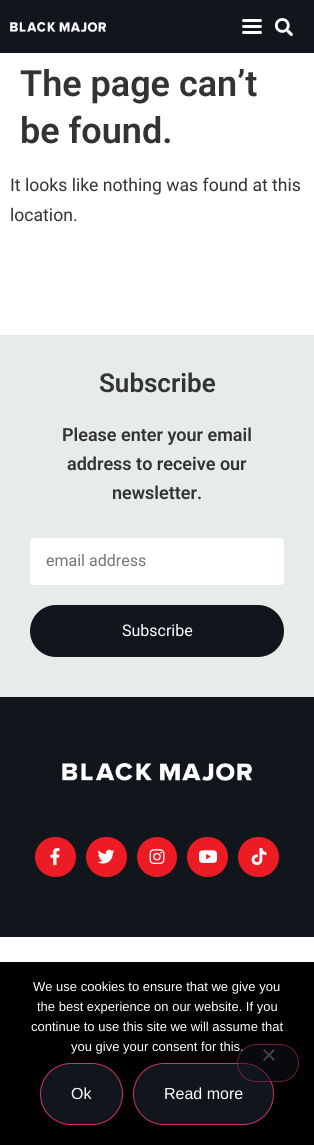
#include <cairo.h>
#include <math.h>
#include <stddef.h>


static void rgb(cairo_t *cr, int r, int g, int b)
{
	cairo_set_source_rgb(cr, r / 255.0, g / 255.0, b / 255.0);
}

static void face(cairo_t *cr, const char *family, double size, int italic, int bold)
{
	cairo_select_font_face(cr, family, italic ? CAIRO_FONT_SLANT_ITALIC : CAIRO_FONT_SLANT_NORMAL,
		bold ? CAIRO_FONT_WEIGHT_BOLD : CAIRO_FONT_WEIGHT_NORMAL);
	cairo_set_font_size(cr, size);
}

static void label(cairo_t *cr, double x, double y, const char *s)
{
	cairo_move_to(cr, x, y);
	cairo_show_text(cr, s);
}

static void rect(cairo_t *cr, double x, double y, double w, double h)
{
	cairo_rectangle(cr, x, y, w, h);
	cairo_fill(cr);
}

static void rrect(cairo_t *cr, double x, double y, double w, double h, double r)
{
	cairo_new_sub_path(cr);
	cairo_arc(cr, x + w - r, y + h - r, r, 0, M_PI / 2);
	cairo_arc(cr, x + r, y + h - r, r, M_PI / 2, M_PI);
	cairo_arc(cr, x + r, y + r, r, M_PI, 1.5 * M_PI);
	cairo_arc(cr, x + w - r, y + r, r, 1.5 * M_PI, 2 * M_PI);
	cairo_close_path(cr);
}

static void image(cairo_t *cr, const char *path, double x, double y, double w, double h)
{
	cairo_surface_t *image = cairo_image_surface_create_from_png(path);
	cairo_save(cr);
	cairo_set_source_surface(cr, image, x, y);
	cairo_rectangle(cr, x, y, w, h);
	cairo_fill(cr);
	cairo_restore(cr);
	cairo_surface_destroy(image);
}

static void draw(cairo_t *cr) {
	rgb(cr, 255, 255, 255);
	cairo_paint(cr);
	rgb(cr, 17, 21, 28);
	rect(cr, 0, 0, 314, 53);
	image(cr, "image0.png", 10, 22, 96, 10);
	rgb(cr, 255, 255, 255);
	rrect(cr, 242, 25, 20, 3, 1.5);
	cairo_fill(cr);
	rrect(cr, 242, 19, 20, 3, 1.5);
	cairo_fill(cr);
	rrect(cr, 242, 31, 20, 3, 1.5);
	cairo_fill(cr);
	image(cr, "image1.png", 274, 18, 19, 19);
	face(cr, "Roboto SemiBold", 36, 0, 0);
	rgb(cr, 51, 51, 51);
	label(cr, 20, 96, "The page can’t");
	label(cr, 20, 143, "be found.");
	face(cr, "Roboto", 17.6, 0, 0);
	label(cr, 10, 191, "It looks like nothing was found at this");
	label(cr, 10, 221, "location.");
	rgb(cr, 229, 236, 233);
	rect(cr, 0, 335, 314, 362);
	face(cr, "Roboto SemiBold", 26, 0, 0);
	rgb(cr, 51, 51, 51);
	label(cr, 99, 392, "Subscribe");
	face(cr, "Roboto SemiBold", 18, 0, 0);
	label(cr, 62, 441, "Please enter your email");
	label(cr, 67, 470, "address to receive our");
	label(cr, 112, 499, "newsletter.");
	rgb(cr, 255, 255, 255);
	rrect(cr, 30, 538, 254, 47, 4);
	cairo_fill(cr);
	face(cr, "Roboto", 16, 0, 0);
	rgb(cr, 117, 117, 117);
	label(cr, 46, 566, "email address");
	rgb(cr, 17, 21, 28);
	rrect(cr, 30, 605, 254, 52, 26);
	cairo_fill(cr);
	rgb(cr, 255, 255, 255);
	label(cr, 122, 636, "Subscribe");
	rgb(cr, 17, 21, 28);
	rect(cr, 0, 697, 314, 240);
	image(cr, "image2.png", 62, 763, 190, 18);
	rgb(cr, 237, 28, 36);
	rrect(cr, 35, 837, 41, 40, 20);
	cairo_fill(cr);
	image(cr, "image3.png", 50, 848, 10, 18);
	rrect(cr, 86, 837, 41, 40, 20);
	cairo_fill(cr);
	image(cr, "image4.png", 97, 849, 18, 15);
	cairo_arc(cr, 157, 857, 20, 0, 2 * M_PI);
	cairo_fill(cr);
	image(cr, "image5.png", 149, 849, 16, 16);
	rrect(cr, 187, 837, 41, 40, 20);
	cairo_fill(cr);
	image(cr, "image6.png", 198, 850, 20, 13);
	rrect(cr, 238, 837, 41, 40, 20);
	cairo_fill(cr);
	image(cr, "image7.png", 251, 848, 16, 18);
	rgb(cr, 0, 0, 0);
	rect(cr, 0, 962, 314, 183);
	face(cr, "Liberation Sans", 13, 0, 0);
	rgb(cr, 255, 255, 255);
	label(cr, 33, 991, "We use cookies to ensure that we give you");
	label(cr, 37, 1011, "the best experience on our website. If you");
	label(cr, 31, 1031, "continue to use this site we will assume that");
	label(cr, 71, 1051, "you give your consent for this.");
	rgb(cr, 17, 21, 28);
	rrect(cr, 133.5, 1063.5, 140, 61, 30.5);
	cairo_fill_preserve(cr);
	rgb(cr, 204, 51, 102);
	cairo_set_line_width(cr, 1);
	cairo_stroke(cr);
	cairo_set_source_rgba(cr, 0.067, 0.082, 0.11, 0.5);
	rrect(cr, 237, 1044, 62, 38, 19);
	cairo_fill(cr);
	rrect(cr, 237.5, 1044.5, 61, 37, 18.5);
	cairo_set_source_rgba(cr, 0.8, 0.2, 0.4, 0.5);
	cairo_stroke(cr);
	rgb(cr, 64, 64, 64);
	cairo_new_path(cr);
	cairo_move_to(cr, 273.5, 1049);
	cairo_line_to(cr, 275, 1050.5);
	cairo_line_to(cr, 264.5, 1061);
	cairo_line_to(cr, 263, 1059.5);
	cairo_close_path(cr);
	cairo_fill(cr);
	cairo_new_path(cr);
	cairo_move_to(cr, 263, 1050.5);
	cairo_line_to(cr, 264.5, 1049);
	cairo_line_to(cr, 275, 1059.5);
	cairo_line_to(cr, 273.5, 1061);
	cairo_close_path(cr);
	cairo_fill(cr);
	rgb(cr, 17, 21, 28);
	rrect(cr, 40.5, 1063.5, 82, 61, 30.5);
	cairo_fill_preserve(cr);
	rgb(cr, 204, 51, 102);
	cairo_stroke(cr);
	face(cr, "Liberation Sans", 16, 0, 0);
	rgb(cr, 255, 255, 255);
	label(cr, 71, 1099, "Ok");
	label(cr, 164, 1099, "Read more");
}

int main(void) {
	cairo_surface_t *surface = cairo_image_surface_create(CAIRO_FORMAT_RGB24, 314, 1145);
	cairo_t *cr = cairo_create(surface);
	cairo_font_options_t *options = cairo_font_options_create();
	cairo_font_options_set_hint_metrics(options, CAIRO_HINT_METRICS_OFF);
	cairo_font_options_set_hint_style(options, CAIRO_HINT_STYLE_NONE);
	cairo_set_font_options(cr, options);
	cairo_set_miter_limit(cr, 4);
	draw(cr);
	cairo_surface_write_to_png(surface, "render.png");
	cairo_font_options_destroy(options);
	cairo_destroy(cr);
	cairo_surface_destroy(surface);
	return 0;
}
